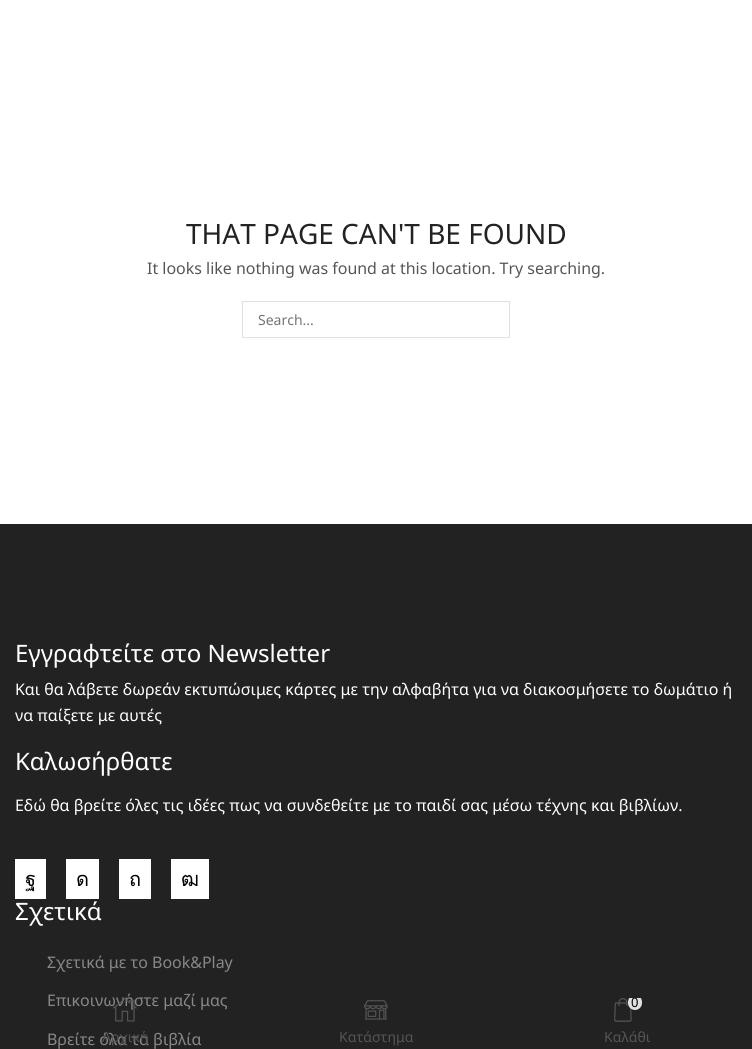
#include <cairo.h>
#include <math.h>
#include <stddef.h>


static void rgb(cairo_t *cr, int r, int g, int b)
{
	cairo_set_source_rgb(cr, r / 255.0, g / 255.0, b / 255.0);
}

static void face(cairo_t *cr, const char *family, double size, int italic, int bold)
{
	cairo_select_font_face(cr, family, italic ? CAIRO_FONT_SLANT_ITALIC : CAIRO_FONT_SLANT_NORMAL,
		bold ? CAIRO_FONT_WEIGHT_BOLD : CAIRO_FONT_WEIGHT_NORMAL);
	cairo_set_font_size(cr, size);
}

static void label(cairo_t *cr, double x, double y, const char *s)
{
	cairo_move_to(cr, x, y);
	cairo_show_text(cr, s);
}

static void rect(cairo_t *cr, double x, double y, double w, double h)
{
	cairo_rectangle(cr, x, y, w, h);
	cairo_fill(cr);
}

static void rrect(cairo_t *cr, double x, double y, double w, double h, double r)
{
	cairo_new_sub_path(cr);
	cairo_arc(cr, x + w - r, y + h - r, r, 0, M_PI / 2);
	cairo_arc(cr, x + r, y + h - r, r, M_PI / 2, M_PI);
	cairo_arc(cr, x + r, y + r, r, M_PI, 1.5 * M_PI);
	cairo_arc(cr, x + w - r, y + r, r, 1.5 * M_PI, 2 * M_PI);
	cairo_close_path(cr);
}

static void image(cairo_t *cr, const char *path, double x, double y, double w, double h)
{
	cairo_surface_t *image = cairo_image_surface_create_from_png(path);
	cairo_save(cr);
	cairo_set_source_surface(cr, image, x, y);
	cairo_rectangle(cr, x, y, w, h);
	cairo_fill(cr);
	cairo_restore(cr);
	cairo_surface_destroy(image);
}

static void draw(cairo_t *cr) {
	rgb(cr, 255, 255, 255);
	cairo_paint(cr);
	face(cr, "Noto Sans", 28, 0, 0);
	rgb(cr, 34, 34, 34);
	label(cr, 186, 244, "THAT PAGE CAN'T BE FOUND");
	face(cr, "Noto Sans", 15.95, 0, 0);
	rgb(cr, 85, 85, 85);
	label(cr, 147, 274, "It looks like nothing was found at this location. Try searching.");
	cairo_rectangle(cr, 242.5, 301.5, 267, 36);
	rgb(cr, 225, 225, 225);
	cairo_set_line_width(cr, 1);
	cairo_stroke(cr);
	face(cr, "Noto Sans", 14, 0, 0);
	rgb(cr, 117, 117, 117);
	label(cr, 258, 325, "Search...");
	rgb(cr, 34, 34, 34);
	rect(cr, 0, 524, 752, 525);
	face(cr, "Noto Sans", 24, 0, 0);
	rgb(cr, 255, 255, 255);
	label(cr, 15, 662, "Εγγραφτείτε στο Newsletter");
	face(cr, "Noto Sans", 15.95, 0, 0);
	label(cr, 15, 695, "Και θα λάβετε δωρεάν εκτυπώσιμες κάρτες με την αλφαβήτα για να διακοσμήσετε το δωμάτιο ή");
	label(cr, 15, 721, "να παίξετε με αυτές");
	face(cr, "Noto Sans", 24, 0, 0);
	label(cr, 15, 770, "Καλωσήρθατε");
	face(cr, "Noto Sans", 15.95, 0, 0);
	label(cr, 15, 811, "Εδώ θα βρείτε όλες τις ιδέες πως να συνδεθείτε με το παιδί σας μέσω τέχνης και βιβλίων.");
	rect(cr, 15, 859, 31, 40);
	face(cr, "Loma", 20, 0, 0);
	rgb(cr, 0, 0, 0);
	label(cr, 25, 886, "ฐ");
	rgb(cr, 255, 255, 255);
	rect(cr, 66, 859, 33, 40);
	rgb(cr, 0, 0, 0);
	label(cr, 76, 886, "ด");
	rgb(cr, 255, 255, 255);
	rect(cr, 119, 859, 32, 40);
	rgb(cr, 0, 0, 0);
	label(cr, 129, 886, "ถ");
	rgb(cr, 255, 255, 255);
	rect(cr, 171, 859, 38, 40);
	rgb(cr, 0, 0, 0);
	label(cr, 181, 886, "ฒ");
	face(cr, "Noto Sans", 24, 0, 0);
	rgb(cr, 255, 255, 255);
	label(cr, 15, 920, "Σχετικά");
	face(cr, "Noto Sans", 15.95, 0, 0);
	rgb(cr, 136, 136, 136);
	label(cr, 47, 968, "Σχετικά με το Book&Play");
	label(cr, 47, 1006, "Επικοινωνήστε μαζί μας");
	label(cr, 47, 1045, "Βρείτε όλα τα βιβλία");
	image(cr, "image0.png", 113, 998, 24, 24);
	face(cr, "Noto Sans", 14, 0, 0);
	rgb(cr, 85, 85, 85);
	label(cr, 102, 1042, "Αρχική");
	image(cr, "image1.png", 364, 1000, 24, 20);
	label(cr, 339, 1042, "Κατάστημα");
	image(cr, "image2.png", 614, 998, 18, 24);
	cairo_save(cr);
	cairo_rectangle(cr, 0, 998, 752, 51);
	cairo_clip(cr);
	rgb(cr, 225, 225, 225);
	rrect(cr, 628, 995, 14, 15, 7);
	cairo_fill(cr);
	face(cr, "Noto Sans", 13, 0, 0);
	rgb(cr, 0, 0, 0);
	label(cr, 631, 1007, "0");
	cairo_restore(cr);
	label(cr, 604, 1042, "Καλάθι");
}

int main(void) {
	cairo_surface_t *surface = cairo_image_surface_create(CAIRO_FORMAT_RGB24, 752, 1049);
	cairo_t *cr = cairo_create(surface);
	cairo_font_options_t *options = cairo_font_options_create();
	cairo_font_options_set_hint_metrics(options, CAIRO_HINT_METRICS_OFF);
	cairo_font_options_set_hint_style(options, CAIRO_HINT_STYLE_NONE);
	cairo_set_font_options(cr, options);
	cairo_set_miter_limit(cr, 4);
	draw(cr);
	cairo_surface_write_to_png(surface, "render.png");
	cairo_font_options_destroy(options);
	cairo_destroy(cr);
	cairo_surface_destroy(surface);
	return 0;
}
